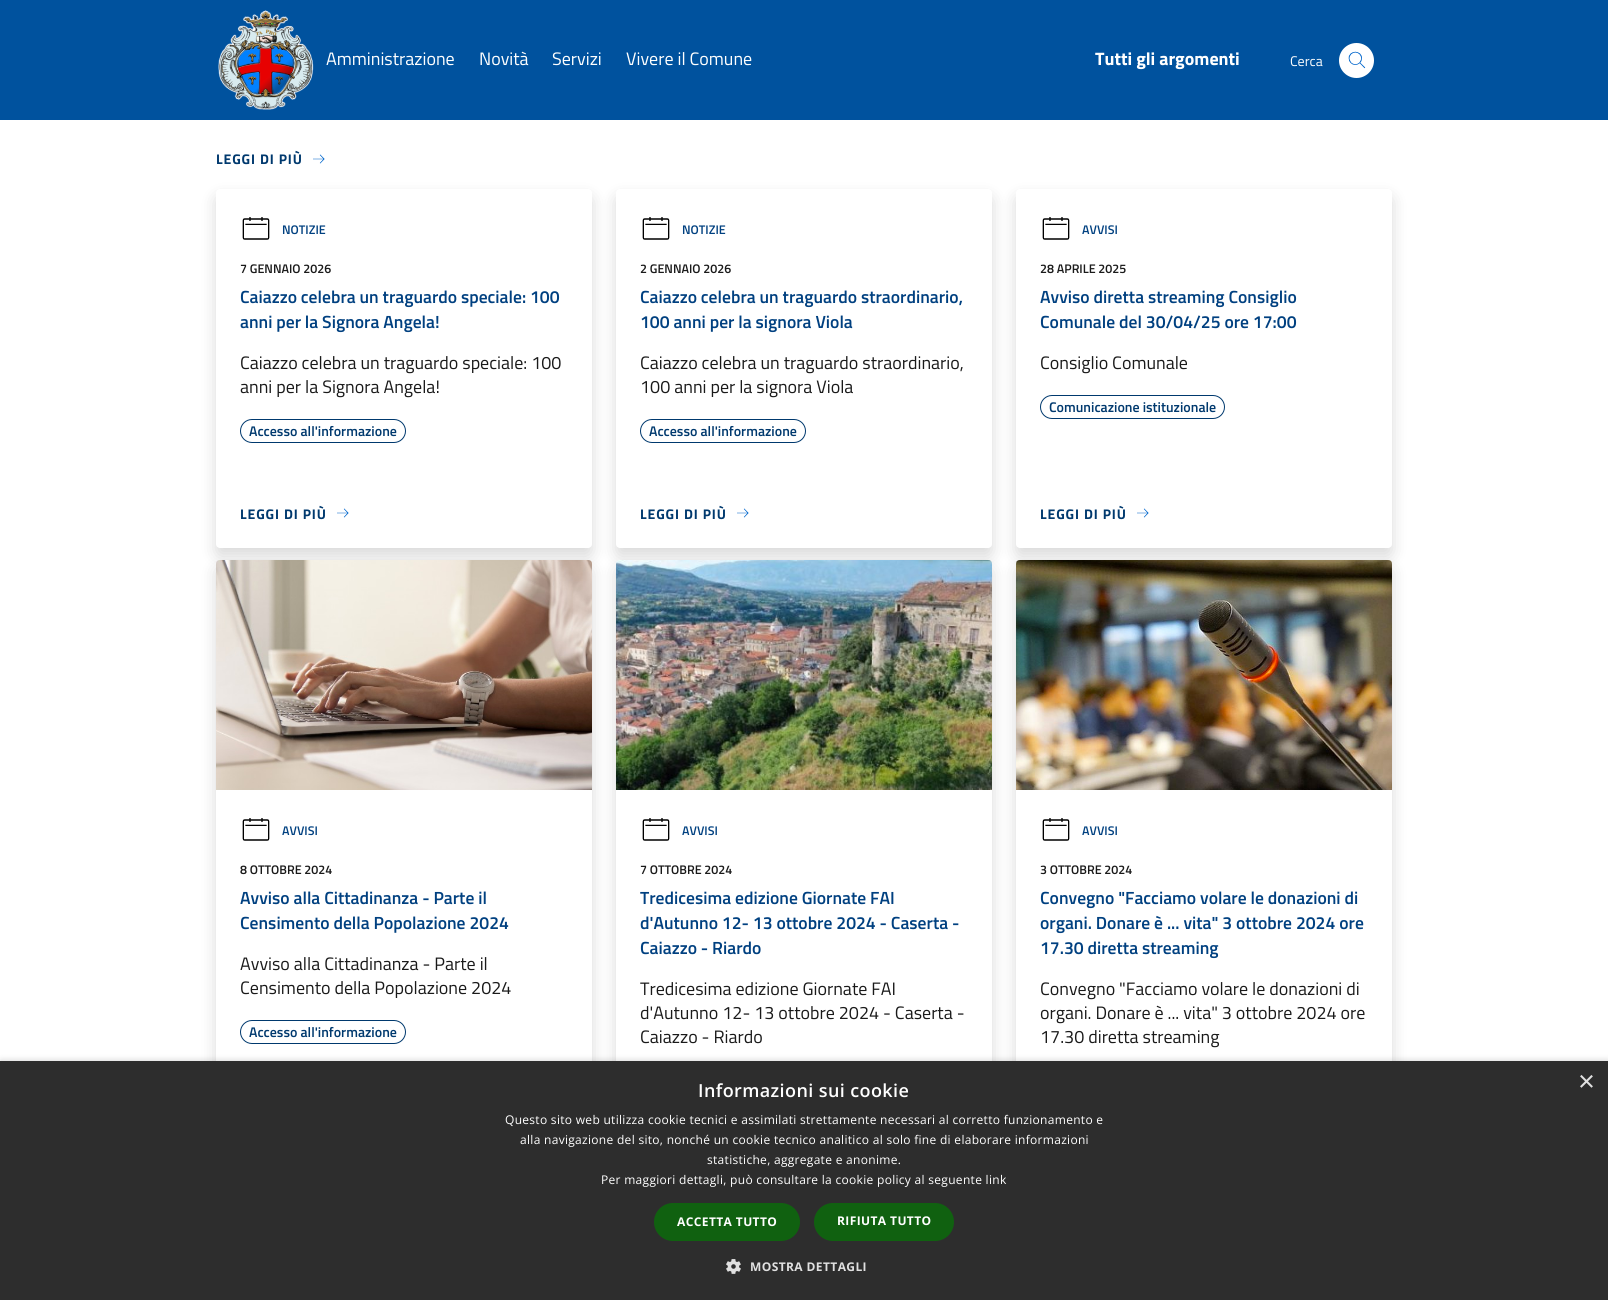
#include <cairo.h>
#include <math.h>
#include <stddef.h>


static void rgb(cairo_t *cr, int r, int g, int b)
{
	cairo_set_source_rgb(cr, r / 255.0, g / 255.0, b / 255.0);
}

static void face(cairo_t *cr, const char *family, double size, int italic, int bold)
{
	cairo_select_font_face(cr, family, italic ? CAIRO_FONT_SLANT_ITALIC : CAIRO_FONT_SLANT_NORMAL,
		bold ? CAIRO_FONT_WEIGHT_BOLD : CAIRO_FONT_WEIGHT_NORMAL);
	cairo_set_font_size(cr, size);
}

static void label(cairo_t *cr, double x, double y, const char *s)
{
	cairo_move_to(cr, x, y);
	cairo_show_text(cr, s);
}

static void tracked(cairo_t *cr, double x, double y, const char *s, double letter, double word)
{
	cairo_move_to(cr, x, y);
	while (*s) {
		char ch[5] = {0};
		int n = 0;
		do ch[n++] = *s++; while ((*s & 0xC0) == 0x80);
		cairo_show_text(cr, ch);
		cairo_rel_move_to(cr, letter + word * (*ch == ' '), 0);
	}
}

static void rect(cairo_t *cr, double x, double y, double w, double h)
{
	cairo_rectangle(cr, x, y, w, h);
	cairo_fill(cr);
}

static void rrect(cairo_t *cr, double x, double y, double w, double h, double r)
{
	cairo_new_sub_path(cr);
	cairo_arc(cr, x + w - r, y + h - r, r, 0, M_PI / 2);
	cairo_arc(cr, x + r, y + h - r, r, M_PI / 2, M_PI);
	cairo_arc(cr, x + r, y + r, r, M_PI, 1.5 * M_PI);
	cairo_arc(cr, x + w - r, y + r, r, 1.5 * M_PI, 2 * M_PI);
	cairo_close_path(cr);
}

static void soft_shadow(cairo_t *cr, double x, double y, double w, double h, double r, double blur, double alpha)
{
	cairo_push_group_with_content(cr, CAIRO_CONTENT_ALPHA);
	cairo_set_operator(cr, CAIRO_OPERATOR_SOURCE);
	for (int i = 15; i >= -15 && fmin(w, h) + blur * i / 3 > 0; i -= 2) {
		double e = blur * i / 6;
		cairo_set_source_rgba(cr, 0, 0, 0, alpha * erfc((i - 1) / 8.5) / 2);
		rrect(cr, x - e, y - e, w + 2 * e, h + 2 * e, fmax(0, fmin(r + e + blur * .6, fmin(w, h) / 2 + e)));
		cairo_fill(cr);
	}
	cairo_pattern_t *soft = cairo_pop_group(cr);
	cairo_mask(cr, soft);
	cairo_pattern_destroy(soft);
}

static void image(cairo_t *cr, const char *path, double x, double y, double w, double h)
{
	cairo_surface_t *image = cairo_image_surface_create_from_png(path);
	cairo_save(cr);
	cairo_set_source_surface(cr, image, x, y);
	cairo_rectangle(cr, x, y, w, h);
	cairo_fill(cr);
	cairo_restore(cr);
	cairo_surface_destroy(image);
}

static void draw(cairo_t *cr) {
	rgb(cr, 255, 255, 255);
	cairo_paint(cr);
	rgb(cr, 0, 82, 158);
	rect(cr, 0, 0, 1608, 120);
	image(cr, "image0.png", 218, 10, 96, 100);
	face(cr, "Titillium Web", 18, 0, 0);
	rgb(cr, 255, 255, 255);
	label(cr, 326, 65, "Amministrazione");
	label(cr, 479, 65, "Novità");
	label(cr, 552, 65, "Servizi");
	label(cr, 626, 65, "Vivere il Comune");
	face(cr, "Titillium Web", 18, 0, 1);
	label(cr, 1095, 65, "Tutti gli argomenti");
	face(cr, "Titillium Web", 14, 0, 0);
	label(cr, 1290, 66, "Cerca");
	cairo_new_path(cr);
	cairo_arc(cr, 1356.5, 60.5, 17.5, 0, 2 * M_PI);
	cairo_fill(cr);
	image(cr, "image1.png", 1348, 51, 18, 18);
	face(cr, "Titillium Web", 14, 0, 1);
	rgb(cr, 0, 57, 110);
	tracked(cr, 216, 164, "LEGGI DI PIÙ", 0.9, 0);
	image(cr, "image2.png", 313, 154, 12, 10);
	rgb(cr, 0, 0, 0);
	soft_shadow(cr, 216, 197, 376, 359, 4, 8, 0.15);
	rgb(cr, 255, 255, 255);
	rrect(cr, 216, 189, 376, 359, 4);
	cairo_fill(cr);
	image(cr, "image3.png", 242, 217, 28, 23);
	face(cr, "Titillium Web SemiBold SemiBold", 12.5, 0, 0);
	rgb(cr, 0, 64, 128);
	label(cr, 282, 234, "NOTIZIE");
	rgb(cr, 26, 26, 26);
	label(cr, 240, 273, "7 GENNAIO 2026");
	face(cr, "Titillium Web SemiBold SemiBold", 17.6, 0, 0);
	rgb(cr, 0, 64, 128);
	label(cr, 240, 303, "Caiazzo celebra un traguardo speciale: 100");
	label(cr, 240, 328, "anni per la Signora Angela!");
	face(cr, "Titillium Web", 18, 0, 0);
	rgb(cr, 26, 26, 26);
	label(cr, 240, 369, "Caiazzo celebra un traguardo speciale: 100");
	label(cr, 240, 393, "anni per la Signora Angela!");
	rrect(cr, 240.5, 419.5, 165, 23, 11.5);
	rgb(cr, 0, 57, 110);
	cairo_set_line_width(cr, 1);
	cairo_stroke(cr);
	face(cr, "Titillium Web SemiBold SemiBold", 14, 0, 0);
	label(cr, 249, 436, "Accesso all'informazione");
	face(cr, "Titillium Web", 14, 0, 1);
	tracked(cr, 240, 519, "LEGGI DI PIÙ", 0.9, 0);
	image(cr, "image2.png", 337, 508, 12, 10);
	rgb(cr, 0, 0, 0);
	soft_shadow(cr, 616, 197, 376, 359, 4, 8, 0.15);
	rgb(cr, 255, 255, 255);
	rrect(cr, 616, 189, 376, 359, 4);
	cairo_fill(cr);
	image(cr, "image3.png", 642, 217, 28, 23);
	face(cr, "Titillium Web SemiBold SemiBold", 12.5, 0, 0);
	rgb(cr, 0, 64, 128);
	label(cr, 682, 234, "NOTIZIE");
	rgb(cr, 26, 26, 26);
	label(cr, 640, 273, "2 GENNAIO 2026");
	face(cr, "Titillium Web SemiBold SemiBold", 17.6, 0, 0);
	rgb(cr, 0, 64, 128);
	label(cr, 640, 303, "Caiazzo celebra un traguardo straordinario,");
	label(cr, 640, 328, "100 anni per la signora Viola");
	face(cr, "Titillium Web", 18, 0, 0);
	rgb(cr, 26, 26, 26);
	label(cr, 640, 369, "Caiazzo celebra un traguardo straordinario,");
	label(cr, 640, 393, "100 anni per la signora Viola");
	rrect(cr, 640.5, 419.5, 165, 23, 11.5);
	rgb(cr, 0, 57, 110);
	cairo_stroke(cr);
	face(cr, "Titillium Web SemiBold SemiBold", 14, 0, 0);
	label(cr, 649, 436, "Accesso all'informazione");
	face(cr, "Titillium Web", 14, 0, 1);
	tracked(cr, 640, 519, "LEGGI DI PIÙ", 0.9, 0);
	image(cr, "image2.png", 737, 508, 12, 10);
	rgb(cr, 0, 0, 0);
	soft_shadow(cr, 1016, 197, 376, 359, 4, 8, 0.15);
	rgb(cr, 255, 255, 255);
	rrect(cr, 1016, 189, 376, 359, 4);
	cairo_fill(cr);
	image(cr, "image3.png", 1042, 217, 28, 23);
	face(cr, "Titillium Web SemiBold SemiBold", 12.5, 0, 0);
	rgb(cr, 0, 64, 128);
	label(cr, 1082, 234, "AVVISI");
	rgb(cr, 26, 26, 26);
	label(cr, 1040, 273, "28 APRILE 2025");
	face(cr, "Titillium Web SemiBold SemiBold", 17.6, 0, 0);
	rgb(cr, 0, 64, 128);
	label(cr, 1040, 303, "Avviso diretta streaming Consiglio");
	label(cr, 1040, 328, "Comunale del 30/04/25 ore 17:00");
	face(cr, "Titillium Web", 18, 0, 0);
	rgb(cr, 26, 26, 26);
	label(cr, 1040, 369, "Consiglio Comunale");
	rrect(cr, 1040.5, 395.5, 184, 23, 11.5);
	rgb(cr, 0, 57, 110);
	cairo_stroke(cr);
	face(cr, "Titillium Web SemiBold SemiBold", 14, 0, 0);
	label(cr, 1049, 412, "Comunicazione istituzionale");
	face(cr, "Titillium Web", 14, 0, 1);
	tracked(cr, 1040, 519, "LEGGI DI PIÙ", 0.9, 0);
	image(cr, "image2.png", 1137, 508, 12, 10);
	rgb(cr, 0, 0, 0);
	soft_shadow(cr, 216, 568, 376, 638, 4, 8, 0.15);
	rgb(cr, 255, 255, 255);
	rrect(cr, 216, 560, 376, 638, 4);
	cairo_fill(cr);
	image(cr, "image4.png", 216, 560, 376, 230);
	image(cr, "image3.png", 242, 818, 28, 23);
	face(cr, "Titillium Web SemiBold SemiBold", 12.5, 0, 0);
	rgb(cr, 0, 64, 128);
	label(cr, 282, 835, "AVVISI");
	rgb(cr, 26, 26, 26);
	label(cr, 240, 874, "8 OTTOBRE 2024");
	face(cr, "Titillium Web SemiBold SemiBold", 17.6, 0, 0);
	rgb(cr, 0, 64, 128);
	label(cr, 240, 904, "Avviso alla Cittadinanza - Parte il");
	label(cr, 240, 929, "Censimento della Popolazione 2024");
	face(cr, "Titillium Web", 18, 0, 0);
	rgb(cr, 26, 26, 26);
	label(cr, 240, 970, "Avviso alla Cittadinanza - Parte il");
	label(cr, 240, 994, "Censimento della Popolazione 2024");
	rrect(cr, 240.5, 1020.5, 165, 23, 11.5);
	rgb(cr, 0, 57, 110);
	cairo_stroke(cr);
	face(cr, "Titillium Web SemiBold SemiBold", 14, 0, 0);
	label(cr, 249, 1037, "Accesso all'informazione");
	rgb(cr, 0, 0, 0);
	soft_shadow(cr, 616, 568, 376, 638, 4, 8, 0.15);
	rgb(cr, 255, 255, 255);
	rrect(cr, 616, 560, 376, 638, 4);
	cairo_fill(cr);
	image(cr, "image5.png", 616, 560, 376, 230);
	image(cr, "image3.png", 642, 818, 28, 23);
	face(cr, "Titillium Web SemiBold SemiBold", 12.5, 0, 0);
	rgb(cr, 0, 64, 128);
	label(cr, 682, 835, "AVVISI");
	rgb(cr, 26, 26, 26);
	label(cr, 640, 874, "7 OTTOBRE 2024");
	face(cr, "Titillium Web SemiBold SemiBold", 17.6, 0, 0);
	rgb(cr, 0, 64, 128);
	label(cr, 640, 904, "Tredicesima edizione Giornate FAI");
	label(cr, 640, 929, "d'Autunno 12- 13 ottobre 2024 - Caserta -");
	label(cr, 640, 954, "Caiazzo - Riardo");
	face(cr, "Titillium Web", 18, 0, 0);
	rgb(cr, 26, 26, 26);
	label(cr, 640, 995, "Tredicesima edizione Giornate FAI");
	label(cr, 640, 1019, "d'Autunno 12- 13 ottobre 2024 - Caserta -");
	label(cr, 640, 1043, "Caiazzo - Riardo");
	rgb(cr, 0, 0, 0);
	soft_shadow(cr, 1016, 568, 376, 638, 4, 8, 0.15);
	rgb(cr, 255, 255, 255);
	rrect(cr, 1016, 560, 376, 638, 4);
	cairo_fill(cr);
	image(cr, "image6.png", 1016, 560, 376, 230);
	image(cr, "image3.png", 1042, 818, 28, 23);
	face(cr, "Titillium Web SemiBold SemiBold", 12.5, 0, 0);
	rgb(cr, 0, 64, 128);
	label(cr, 1082, 835, "AVVISI");
	rgb(cr, 26, 26, 26);
	label(cr, 1040, 874, "3 OTTOBRE 2024");
	face(cr, "Titillium Web SemiBold SemiBold", 17.6, 0, 0);
	rgb(cr, 0, 64, 128);
	label(cr, 1040, 904, "Convegno \"Facciamo volare le donazioni di");
	label(cr, 1040, 929, "organi. Donare è ... vita\" 3 ottobre 2024 ore");
	label(cr, 1040, 954, "17.30 diretta streaming");
	face(cr, "Titillium Web", 18, 0, 0);
	rgb(cr, 26, 26, 26);
	label(cr, 1040, 995, "Convegno \"Facciamo volare le donazioni di");
	label(cr, 1040, 1019, "organi. Donare è ... vita\" 3 ottobre 2024 ore");
	label(cr, 1040, 1043, "17.30 diretta streaming");
	rgb(cr, 0, 0, 0);
	soft_shadow(cr, 1, 1063, 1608, 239, 0, 4, 0.35);
	rgb(cr, 45, 45, 45);
	rect(cr, 0, 1061, 1608, 239);
	face(cr, "Liberation Sans", 29, 0, 0);
	rgb(cr, 224, 224, 224);
	label(cr, 1578, 1091, "×");
	face(cr, "Open Sans SemiBold", 18, 0, 0);
	rgb(cr, 255, 255, 255);
	tracked(cr, 698, 1097, "Informazioni sui cookie", 0.4, 0);
	face(cr, "Open Sans", 12, 0, 0);
	tracked(cr, 505, 1124, "Questo sito web utilizza cookie tecnici e assimilati strettamente necessari al corretto funzionamento e", 0.3, 0);
	tracked(cr, 520, 1144, "alla navigazione del sito, nonché un cookie tecnico analitico al solo fine di elaborare informazioni", 0.3, 0);
	tracked(cr, 707, 1164, "statistiche, aggregate e anonime.", 0.3, 0);
	tracked(cr, 601, 1184, "Per maggiori dettagli, può consultare la cookie policy al seguente link", 0.3, 0);
	rgb(cr, 16, 97, 16);
	rrect(cr, 654, 1203, 146, 38, 19);
	cairo_fill(cr);
	face(cr, "Open Sans", 12, 0, 1);
	rgb(cr, 255, 255, 255);
	tracked(cr, 677, 1226, "ACCETTA TUTTO", 0.4, 0);
	rgb(cr, 16, 97, 16);
	rrect(cr, 814, 1203, 140, 38, 19);
	cairo_fill(cr);
	rgb(cr, 255, 255, 255);
	tracked(cr, 837, 1225, "RIFIUTA TUTTO", 0.4, 0);
	image(cr, "image7.png", 726, 1259, 15, 15);
	rgb(cr, 224, 224, 224);
	tracked(cr, 750, 1271, "MOSTRA DETTAGLI", 0.4, 0);
}

int main(void) {
	cairo_surface_t *surface = cairo_image_surface_create(CAIRO_FORMAT_RGB24, 1608, 1300);
	cairo_t *cr = cairo_create(surface);
	cairo_font_options_t *options = cairo_font_options_create();
	cairo_font_options_set_hint_metrics(options, CAIRO_HINT_METRICS_OFF);
	cairo_font_options_set_hint_style(options, CAIRO_HINT_STYLE_NONE);
	cairo_set_font_options(cr, options);
	cairo_set_miter_limit(cr, 4);
	draw(cr);
	cairo_surface_write_to_png(surface, "render.png");
	cairo_font_options_destroy(options);
	cairo_destroy(cr);
	cairo_surface_destroy(surface);
	return 0;
}
